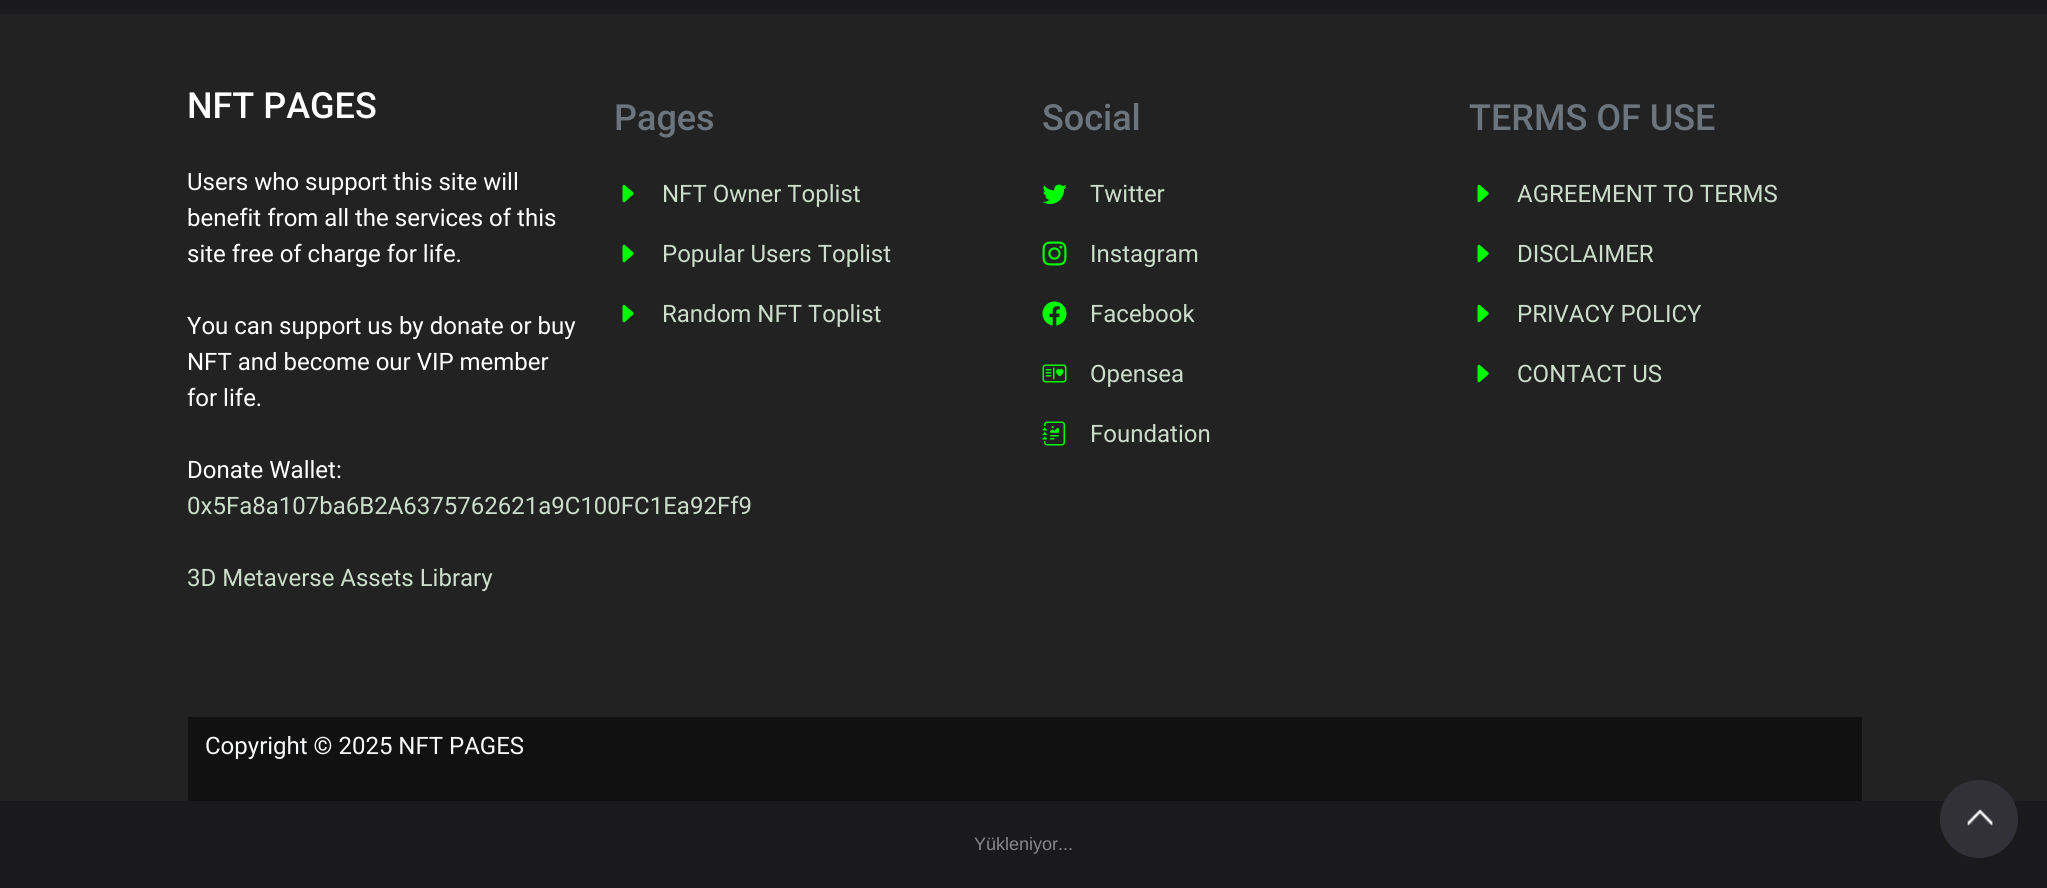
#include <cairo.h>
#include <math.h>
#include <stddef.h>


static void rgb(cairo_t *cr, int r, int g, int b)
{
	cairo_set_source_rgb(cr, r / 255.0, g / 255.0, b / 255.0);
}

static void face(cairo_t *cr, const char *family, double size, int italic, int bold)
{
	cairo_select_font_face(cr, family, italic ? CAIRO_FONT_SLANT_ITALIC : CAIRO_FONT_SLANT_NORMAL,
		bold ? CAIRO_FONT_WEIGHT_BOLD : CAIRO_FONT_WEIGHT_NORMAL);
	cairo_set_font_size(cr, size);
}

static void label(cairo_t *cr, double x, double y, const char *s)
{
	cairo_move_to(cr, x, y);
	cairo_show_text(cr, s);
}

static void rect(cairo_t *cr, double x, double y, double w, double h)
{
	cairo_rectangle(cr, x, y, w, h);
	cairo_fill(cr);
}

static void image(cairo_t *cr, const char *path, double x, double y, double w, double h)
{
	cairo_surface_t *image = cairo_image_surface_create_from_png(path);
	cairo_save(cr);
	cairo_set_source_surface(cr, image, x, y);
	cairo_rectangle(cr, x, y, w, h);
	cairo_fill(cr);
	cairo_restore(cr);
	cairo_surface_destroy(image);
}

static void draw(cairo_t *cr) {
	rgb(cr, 26, 26, 29);
	cairo_paint(cr);
	rgb(cr, 34, 34, 34);
	rect(cr, 0, 14, 2047, 787);
	face(cr, "Roboto Medium", 36, 0, 0);
	rgb(cr, 255, 255, 255);
	label(cr, 187, 118, "NFT PAGES");
	face(cr, "Roboto", 24, 0, 0);
	label(cr, 187, 190, "Users who support this site will");
	label(cr, 187, 226, "benefit from all the services of this");
	label(cr, 187, 262, "site free of charge for life.");
	label(cr, 187, 334, "You can support us by donate or buy");
	label(cr, 187, 370, "NFT and become our VIP member");
	label(cr, 187, 406, "for life.");
	label(cr, 187, 478, "Donate Wallet:");
	rgb(cr, 204, 221, 204);
	label(cr, 187, 514, "0x5Fa8a107ba6B2A6375762621a9C100FC1Ea92Ff9");
	label(cr, 187, 586, "3D Metaverse Assets Library");
	face(cr, "Roboto Medium", 36, 0, 0);
	rgb(cr, 108, 117, 125);
	label(cr, 614, 130, "Pages");
	image(cr, "image0.png", 622, 184, 12, 19);
	face(cr, "Roboto", 24, 0, 0);
	rgb(cr, 204, 221, 204);
	label(cr, 662, 202, "NFT Owner Toplist");
	image(cr, "image0.png", 622, 244, 12, 19);
	label(cr, 662, 262, "Popular Users Toplist");
	image(cr, "image0.png", 622, 304, 12, 19);
	label(cr, 662, 322, "Random NFT Toplist");
	face(cr, "Roboto Medium", 36, 0, 0);
	rgb(cr, 108, 117, 125);
	label(cr, 1042, 130, "Social");
	image(cr, "image1.png", 1042, 184, 25, 20);
	face(cr, "Roboto", 24, 0, 0);
	rgb(cr, 204, 221, 204);
	label(cr, 1090, 202, "Twitter");
	image(cr, "image2.png", 1042, 241, 25, 25);
	label(cr, 1090, 262, "Instagram");
	image(cr, "image3.png", 1042, 301, 25, 25);
	label(cr, 1090, 322, "Facebook");
	image(cr, "image4.png", 1042, 364, 25, 19);
	label(cr, 1090, 382, "Opensea");
	image(cr, "image5.png", 1042, 421, 23, 25);
	label(cr, 1090, 442, "Foundation");
	face(cr, "Roboto Medium", 36, 0, 0);
	rgb(cr, 108, 117, 125);
	label(cr, 1469, 130, "TERMS OF USE");
	image(cr, "image0.png", 1477, 184, 12, 19);
	face(cr, "Roboto", 24, 0, 0);
	rgb(cr, 204, 221, 204);
	label(cr, 1517, 202, "AGREEMENT TO TERMS");
	image(cr, "image0.png", 1477, 244, 12, 19);
	label(cr, 1517, 262, "DISCLAIMER");
	image(cr, "image0.png", 1477, 304, 12, 19);
	label(cr, 1517, 322, "PRIVACY POLICY");
	image(cr, "image0.png", 1477, 364, 12, 19);
	label(cr, 1517, 382, "CONTACT US");
	rgb(cr, 17, 17, 17);
	rect(cr, 188, 717, 1674, 84);
	rgb(cr, 248, 249, 250);
	label(cr, 205, 754, "Copyright © 2025 NFT PAGES");
	face(cr, "Liberation Sans", 18, 0, 0);
	rgb(cr, 136, 136, 136);
	label(cr, 974, 850, "Yükleniyor...");
	rgb(cr, 50, 49, 55);
	cairo_new_path(cr);
	cairo_arc(cr, 1979, 819, 39, 0, 2 * M_PI);
	cairo_fill(cr);
	image(cr, "image6.png", 1967, 809, 26, 17);
}

int main(void) {
	cairo_surface_t *surface = cairo_image_surface_create(CAIRO_FORMAT_RGB24, 2047, 888);
	cairo_t *cr = cairo_create(surface);
	cairo_font_options_t *options = cairo_font_options_create();
	cairo_font_options_set_hint_metrics(options, CAIRO_HINT_METRICS_OFF);
	cairo_font_options_set_hint_style(options, CAIRO_HINT_STYLE_NONE);
	cairo_set_font_options(cr, options);
	cairo_set_miter_limit(cr, 4);
	draw(cr);
	cairo_surface_write_to_png(surface, "render.png");
	cairo_font_options_destroy(options);
	cairo_destroy(cr);
	cairo_surface_destroy(surface);
	return 0;
}
